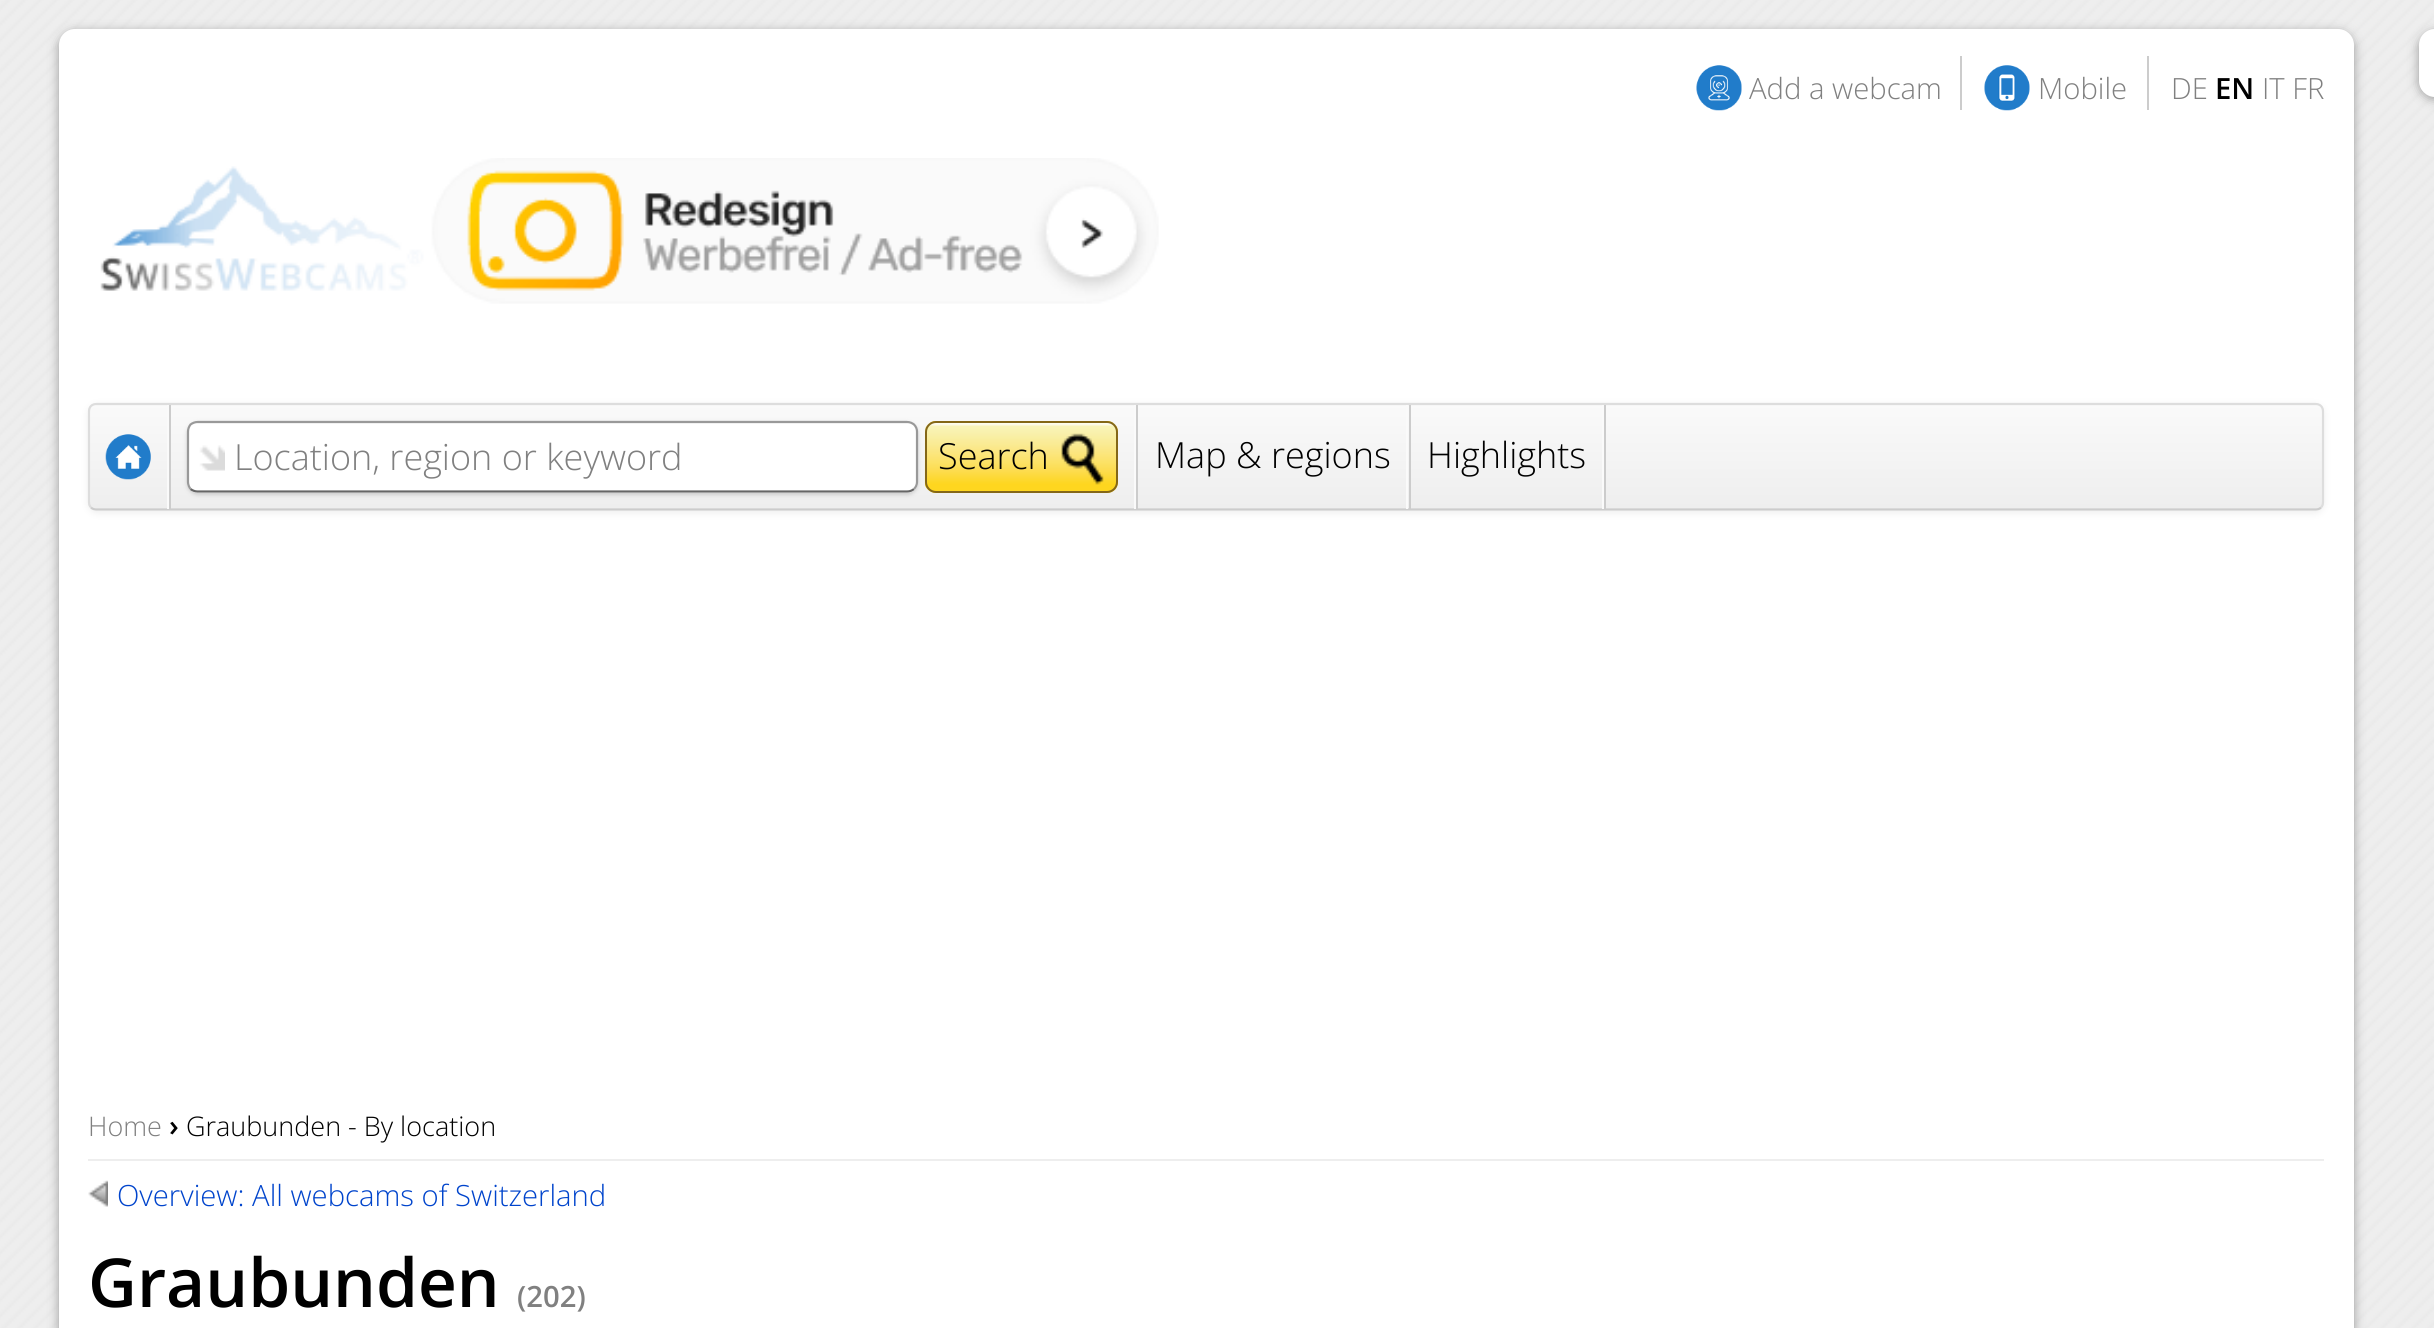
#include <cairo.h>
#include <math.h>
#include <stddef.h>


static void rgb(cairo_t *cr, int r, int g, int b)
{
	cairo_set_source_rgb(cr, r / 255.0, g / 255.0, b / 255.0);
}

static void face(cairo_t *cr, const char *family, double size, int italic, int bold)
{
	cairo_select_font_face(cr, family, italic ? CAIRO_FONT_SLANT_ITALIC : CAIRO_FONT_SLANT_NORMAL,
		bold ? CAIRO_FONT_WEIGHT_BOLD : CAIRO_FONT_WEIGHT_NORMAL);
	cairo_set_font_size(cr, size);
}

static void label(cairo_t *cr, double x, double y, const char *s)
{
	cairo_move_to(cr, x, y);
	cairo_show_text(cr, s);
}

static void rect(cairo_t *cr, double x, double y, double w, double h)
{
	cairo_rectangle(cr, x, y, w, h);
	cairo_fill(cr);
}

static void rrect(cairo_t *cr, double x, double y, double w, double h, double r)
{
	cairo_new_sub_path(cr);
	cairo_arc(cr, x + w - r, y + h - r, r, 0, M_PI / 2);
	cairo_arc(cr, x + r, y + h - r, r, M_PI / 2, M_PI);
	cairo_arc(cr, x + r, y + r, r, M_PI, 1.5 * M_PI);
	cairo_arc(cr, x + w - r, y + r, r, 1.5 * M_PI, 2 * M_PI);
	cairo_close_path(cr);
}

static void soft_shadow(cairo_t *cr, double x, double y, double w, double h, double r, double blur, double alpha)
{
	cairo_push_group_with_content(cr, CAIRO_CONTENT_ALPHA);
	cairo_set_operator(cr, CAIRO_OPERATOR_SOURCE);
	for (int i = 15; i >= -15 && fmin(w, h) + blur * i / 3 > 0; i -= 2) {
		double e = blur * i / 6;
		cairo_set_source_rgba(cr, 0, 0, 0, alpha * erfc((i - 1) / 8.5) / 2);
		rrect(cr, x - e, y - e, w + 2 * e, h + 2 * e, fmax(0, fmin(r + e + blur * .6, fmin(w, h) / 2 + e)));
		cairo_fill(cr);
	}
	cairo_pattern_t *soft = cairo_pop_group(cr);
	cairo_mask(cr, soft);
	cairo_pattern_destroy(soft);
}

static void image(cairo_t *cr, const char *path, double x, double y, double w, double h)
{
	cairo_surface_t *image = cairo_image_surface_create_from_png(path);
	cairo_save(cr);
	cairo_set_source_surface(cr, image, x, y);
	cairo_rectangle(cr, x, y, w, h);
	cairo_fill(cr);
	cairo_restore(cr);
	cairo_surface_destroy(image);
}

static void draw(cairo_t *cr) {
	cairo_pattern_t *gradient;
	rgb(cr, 255, 255, 255);
	cairo_paint(cr);
	image(cr, "image0.png", 0, 0, 2434, 1328);
	rgb(cr, 153, 153, 153);
	soft_shadow(cr, 2419, 32, 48, 67, 16, 5.5, 1);
	rgb(cr, 255, 255, 255);
	rrect(cr, 2419, 29, 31, 68, 16);
	cairo_fill(cr);
	rgb(cr, 153, 153, 153);
	soft_shadow(cr, 59, 32, 2295, 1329, 16, 5.5, 1);
	rgb(cr, 255, 255, 255);
	rrect(cr, 59, 29, 2295, 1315, 16);
	cairo_fill(cr);
	image(cr, "image1.png", 1696, 65, 46, 46);
	face(cr, "Open Sans Light", 29.25, 0, 0);
	rgb(cr, 128, 128, 128);
	label(cr, 1749, 99, "Add a webcam");
	rgb(cr, 204, 204, 204);
	rect(cr, 1960, 56, 2, 54);
	image(cr, "image2.png", 1984, 65, 46, 46);
	rgb(cr, 128, 128, 128);
	label(cr, 2038, 99, "Mobile");
	rgb(cr, 204, 204, 204);
	rect(cr, 2147, 56, 2, 54);
	rgb(cr, 128, 128, 128);
	label(cr, 2171, 99, "DE");
	face(cr, "Open Sans SemiBold", 29.25, 0, 0);
	rgb(cr, 0, 0, 0);
	label(cr, 2215, 99, "EN");
	face(cr, "Open Sans Light", 29.25, 0, 0);
	rgb(cr, 128, 128, 128);
	label(cr, 2262, 99, "IT FR");
	image(cr, "image3.png", 100, 158, 1059, 146);
	rgb(cr, 238, 238, 238);
	soft_shadow(cr, 88, 405, 2236, 108, 9, 3.5, 1);
	cairo_save(cr);
	rrect(cr, 88, 403, 2236, 108, 9);
	cairo_clip(cr);
	gradient = cairo_pattern_create_linear(90, 405, 90, 509);
	cairo_pattern_add_color_stop_rgba(gradient, 0, 0.98, 0.98, 0.98, 1);
	cairo_pattern_add_color_stop_rgba(gradient, 1, 0.933, 0.933, 0.933, 1);
	cairo_set_source(cr, gradient);
	cairo_pattern_destroy(gradient);
	rect(cr, 88, 405, 2236, 104);
	gradient = cairo_pattern_create_linear(90, 509, 90, 612);
	cairo_pattern_add_color_stop_rgba(gradient, 0, 0.98, 0.98, 0.98, 1);
	cairo_pattern_add_color_stop_rgba(gradient, 1, 0.933, 0.933, 0.933, 1);
	cairo_set_source(cr, gradient);
	cairo_pattern_destroy(gradient);
	rect(cr, 88, 509, 2236, 2);
	cairo_restore(cr);
	cairo_new_path(cr);
	cairo_move_to(cr, 2321, 507.5);
	cairo_curve_to(cr, 2319.5, 509, 2317.5, 509.5, 2315.5, 509.5);
	cairo_line_to(cr, 96.5, 509.5);
	cairo_curve_to(cr, 94.5, 509.5, 92.5, 509, 91, 507.5);
	rgb(cr, 204, 204, 204);
	cairo_set_line_width(cr, 2.2);
	cairo_stroke(cr);
	cairo_new_path(cr);
	cairo_move_to(cr, 91, 507.5);
	cairo_curve_to(cr, 89.5, 506, 89, 504, 89, 502);
	cairo_line_to(cr, 89, 411.5);
	cairo_curve_to(cr, 89, 409.5, 89.5, 407.5, 91, 406);
	cairo_curve_to(cr, 92.5, 404.5, 94.5, 404, 96.5, 404);
	cairo_line_to(cr, 2315.5, 404);
	cairo_curve_to(cr, 2317.5, 404, 2319.5, 404.5, 2321, 406);
	cairo_curve_to(cr, 2322.5, 407.5, 2323, 409.5, 2323, 411.5);
	cairo_line_to(cr, 2323, 502);
	cairo_curve_to(cr, 2323, 504, 2322.5, 506, 2321, 507.5);
	rgb(cr, 221, 221, 221);
	cairo_stroke(cr);
	rgb(cr, 204, 204, 204);
	rect(cr, 1604, 405, 2, 104);
	rgb(cr, 250, 250, 250);
	rect(cr, 167, 405, 2, 104);
	image(cr, "image4.png", 105, 434, 46, 46);
	rect(cr, 1134, 405, 2, 104);
	rgb(cr, 204, 204, 204);
	rect(cr, 169, 405, 2, 104);
	rgb(cr, 204, 204, 204);
	soft_shadow(cr, 187, 423, 731, 72, 11, 2, 1);
	rgb(cr, 255, 255, 255);
	rrect(cr, 187, 421, 731, 72, 11);
	cairo_fill(cr);
	image(cr, "image5.png", 189, 423, 36, 67);
	cairo_new_path(cr);
	cairo_move_to(cr, 914, 489);
	cairo_curve_to(cr, 912, 490.5, 910, 491.5, 907, 491.5);
	cairo_line_to(cr, 197.5, 491.5);
	cairo_curve_to(cr, 195, 491.5, 192.5, 490.5, 190.5, 489);
	rgb(cr, 102, 102, 102);
	cairo_stroke(cr);
	cairo_new_path(cr);
	cairo_move_to(cr, 190.5, 489);
	cairo_curve_to(cr, 189, 487, 188, 484.5, 188, 482);
	cairo_line_to(cr, 188, 431.5);
	cairo_curve_to(cr, 188, 429, 189, 426.5, 190.5, 424.5);
	cairo_curve_to(cr, 192.5, 423, 195, 422, 197.5, 422);
	cairo_line_to(cr, 907, 422);
	cairo_curve_to(cr, 910, 422, 912, 423, 914, 424.5);
	cairo_curve_to(cr, 916, 426.5, 917, 429, 917, 431.5);
	cairo_line_to(cr, 917, 482);
	cairo_curve_to(cr, 917, 484.5, 916, 487, 914, 489);
	rgb(cr, 153, 153, 153);
	cairo_stroke(cr);
	face(cr, "Open Sans Light", 36, 0, 0);
	rgb(cr, 128, 128, 128);
	label(cr, 234, 470, "Location, region or keyword");
	rgb(cr, 254, 214, 31);
	rrect(cr, 925, 421, 193, 72, 11);
	cairo_fill(cr);
	image(cr, "image6.png", 924, 423, 192, 68);
	rrect(cr, 926, 422, 191, 70, 10);
	rgb(cr, 132, 103, 24);
	cairo_set_line_width(cr, 2);
	cairo_stroke(cr);
	rgb(cr, 0, 0, 0);
	label(cr, 938, 469, "Search");
	rgb(cr, 250, 250, 250);
	rect(cr, 1406, 405, 2, 104);
	rgb(cr, 204, 204, 204);
	rect(cr, 1136, 405, 2, 104);
	rgb(cr, 0, 0, 0);
	label(cr, 1155, 468, "Map & regions");
	rgb(cr, 250, 250, 250);
	rect(cr, 1602, 405, 2, 104);
	rgb(cr, 204, 204, 204);
	rect(cr, 1409, 405, 2, 104);
	rgb(cr, 0, 0, 0);
	label(cr, 1427, 468, "Highlights");
	face(cr, "Open Sans Light", 27, 0, 0);
	rgb(cr, 128, 128, 128);
	label(cr, 88, 1136, "Home");
	face(cr, "Open Sans SemiBold", 29.25, 0, 0);
	rgb(cr, 0, 0, 0);
	label(cr, 169, 1136, "›");
	face(cr, "Open Sans Light", 27, 0, 0);
	label(cr, 186, 1136, "Graubunden - By location");
	rgb(cr, 238, 238, 238);
	rect(cr, 88, 1159, 2236, 2);
	image(cr, "image7.png", 88, 1180, 20, 27);
	face(cr, "Open Sans Light", 29.25, 0, 0);
	rgb(cr, 0, 68, 204);
	label(cr, 117, 1206, "Overview: All webcams of Switzerland");
	face(cr, "Open Sans SemiBold", 67.5, 0, 0);
	rgb(cr, 0, 0, 0);
	label(cr, 88, 1307, "Graubunden");
	face(cr, "Open Sans SemiBold", 29.25, 0, 0);
	rgb(cr, 128, 128, 128);
	label(cr, 517, 1307, "(202)");
}

int main(void) {
	cairo_surface_t *surface = cairo_image_surface_create(CAIRO_FORMAT_RGB24, 2434, 1328);
	cairo_t *cr = cairo_create(surface);
	cairo_font_options_t *options = cairo_font_options_create();
	cairo_font_options_set_hint_metrics(options, CAIRO_HINT_METRICS_OFF);
	cairo_font_options_set_hint_style(options, CAIRO_HINT_STYLE_NONE);
	cairo_set_font_options(cr, options);
	cairo_set_miter_limit(cr, 4);
	draw(cr);
	cairo_surface_write_to_png(surface, "render.png");
	cairo_font_options_destroy(options);
	cairo_destroy(cr);
	cairo_surface_destroy(surface);
	return 0;
}
